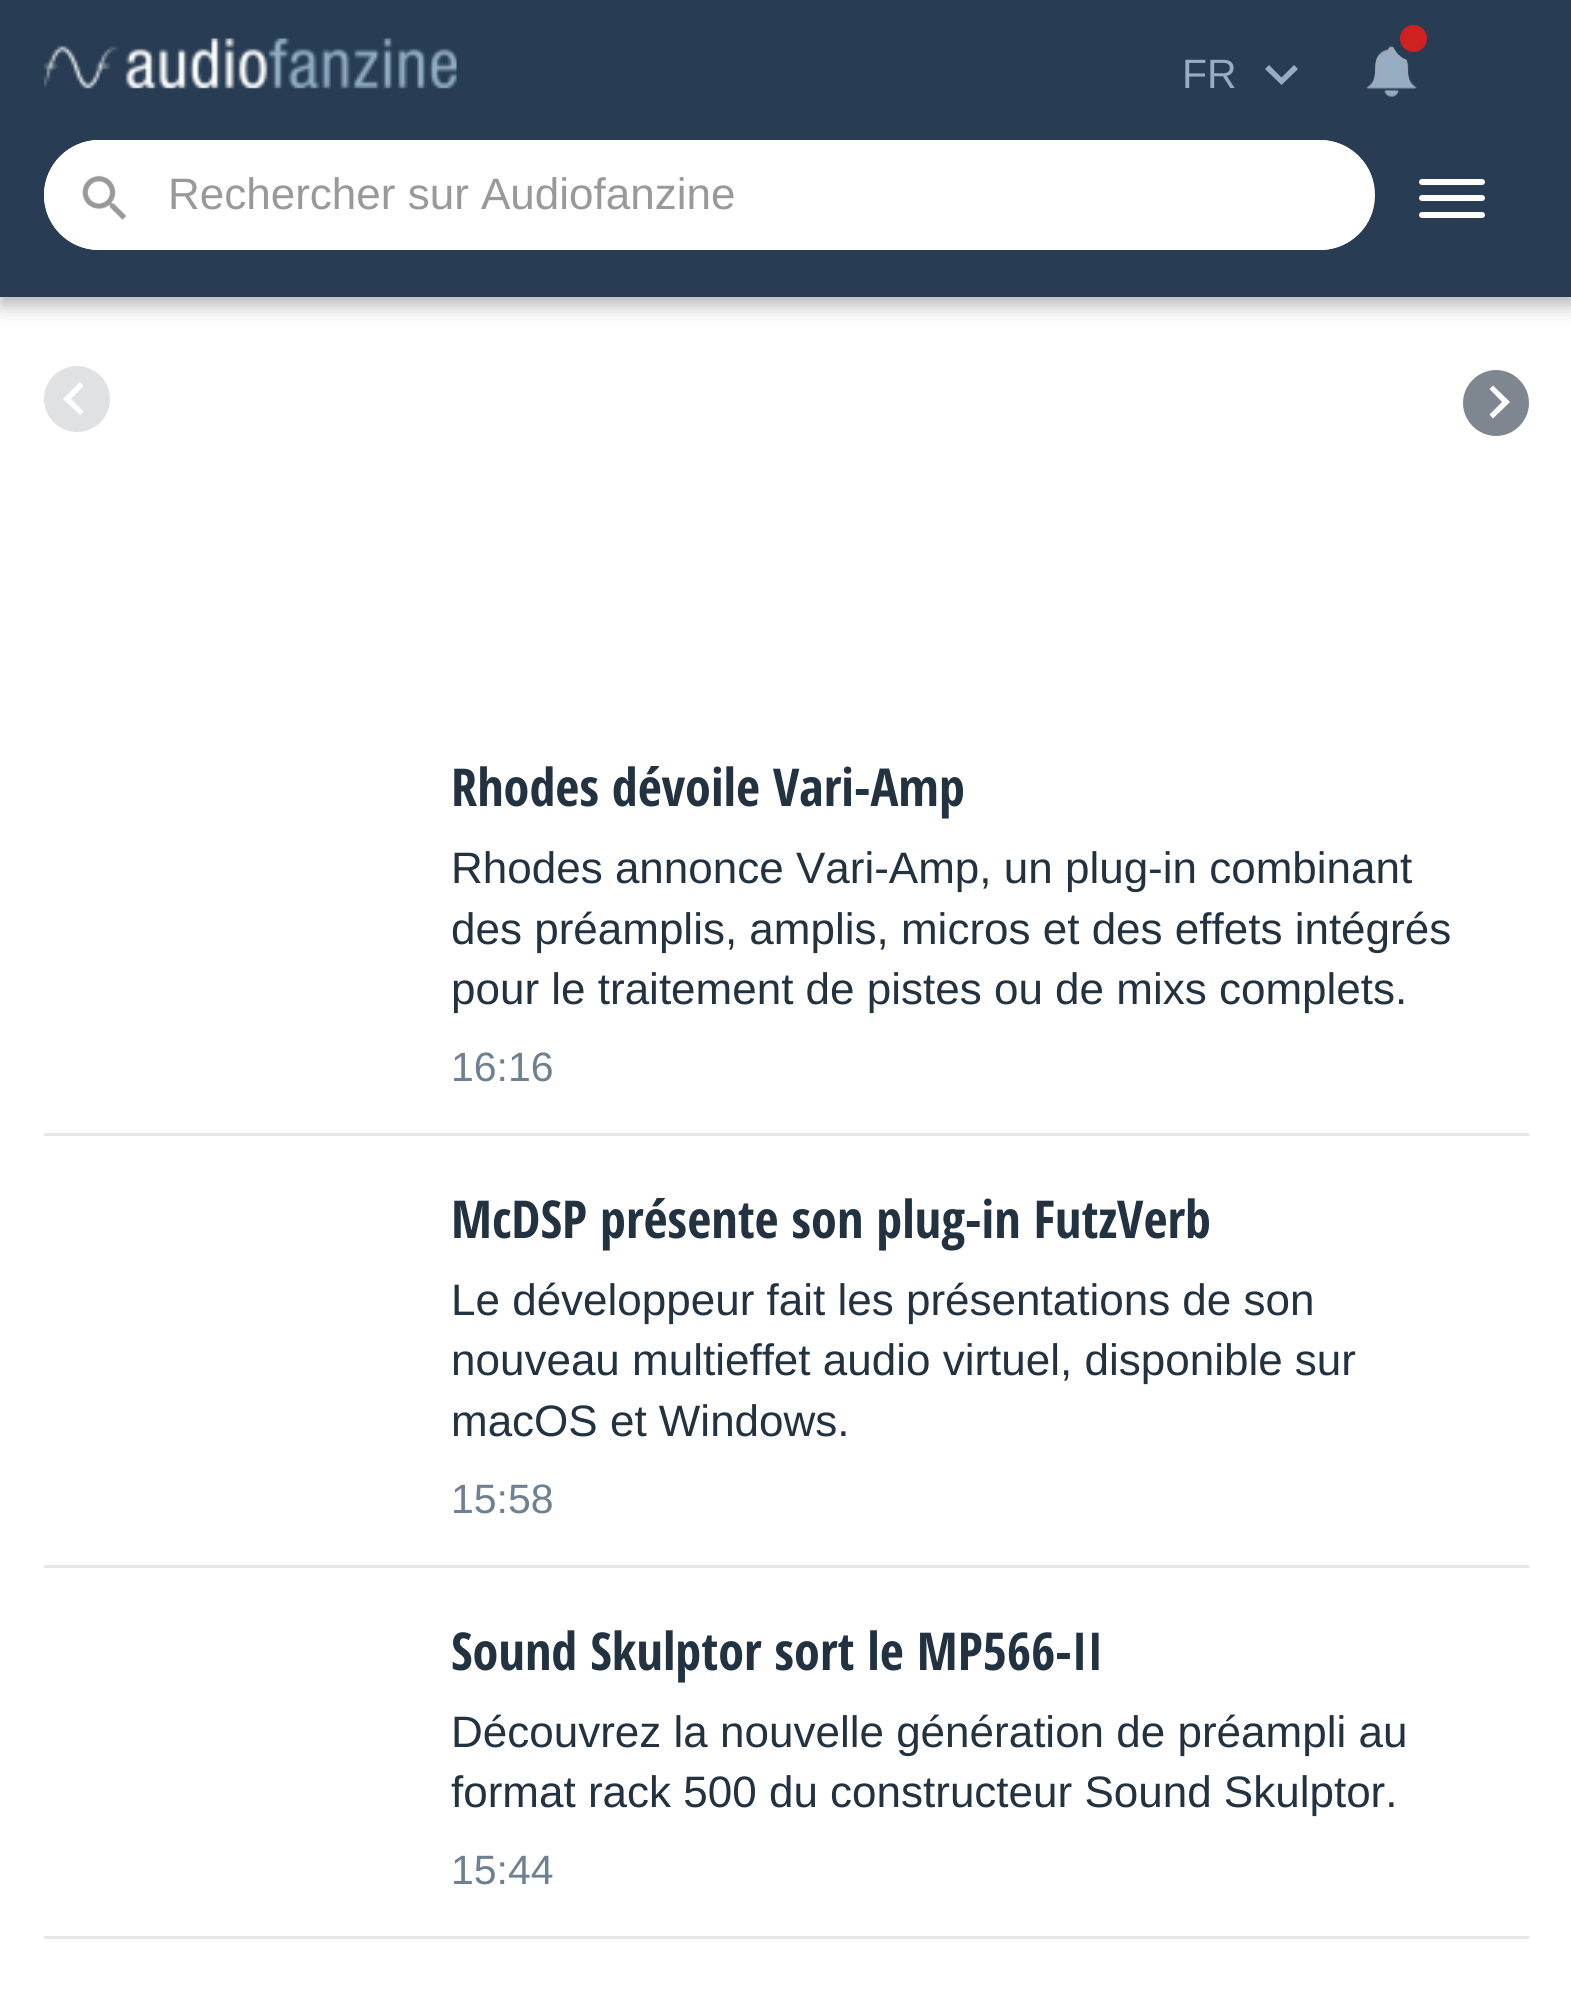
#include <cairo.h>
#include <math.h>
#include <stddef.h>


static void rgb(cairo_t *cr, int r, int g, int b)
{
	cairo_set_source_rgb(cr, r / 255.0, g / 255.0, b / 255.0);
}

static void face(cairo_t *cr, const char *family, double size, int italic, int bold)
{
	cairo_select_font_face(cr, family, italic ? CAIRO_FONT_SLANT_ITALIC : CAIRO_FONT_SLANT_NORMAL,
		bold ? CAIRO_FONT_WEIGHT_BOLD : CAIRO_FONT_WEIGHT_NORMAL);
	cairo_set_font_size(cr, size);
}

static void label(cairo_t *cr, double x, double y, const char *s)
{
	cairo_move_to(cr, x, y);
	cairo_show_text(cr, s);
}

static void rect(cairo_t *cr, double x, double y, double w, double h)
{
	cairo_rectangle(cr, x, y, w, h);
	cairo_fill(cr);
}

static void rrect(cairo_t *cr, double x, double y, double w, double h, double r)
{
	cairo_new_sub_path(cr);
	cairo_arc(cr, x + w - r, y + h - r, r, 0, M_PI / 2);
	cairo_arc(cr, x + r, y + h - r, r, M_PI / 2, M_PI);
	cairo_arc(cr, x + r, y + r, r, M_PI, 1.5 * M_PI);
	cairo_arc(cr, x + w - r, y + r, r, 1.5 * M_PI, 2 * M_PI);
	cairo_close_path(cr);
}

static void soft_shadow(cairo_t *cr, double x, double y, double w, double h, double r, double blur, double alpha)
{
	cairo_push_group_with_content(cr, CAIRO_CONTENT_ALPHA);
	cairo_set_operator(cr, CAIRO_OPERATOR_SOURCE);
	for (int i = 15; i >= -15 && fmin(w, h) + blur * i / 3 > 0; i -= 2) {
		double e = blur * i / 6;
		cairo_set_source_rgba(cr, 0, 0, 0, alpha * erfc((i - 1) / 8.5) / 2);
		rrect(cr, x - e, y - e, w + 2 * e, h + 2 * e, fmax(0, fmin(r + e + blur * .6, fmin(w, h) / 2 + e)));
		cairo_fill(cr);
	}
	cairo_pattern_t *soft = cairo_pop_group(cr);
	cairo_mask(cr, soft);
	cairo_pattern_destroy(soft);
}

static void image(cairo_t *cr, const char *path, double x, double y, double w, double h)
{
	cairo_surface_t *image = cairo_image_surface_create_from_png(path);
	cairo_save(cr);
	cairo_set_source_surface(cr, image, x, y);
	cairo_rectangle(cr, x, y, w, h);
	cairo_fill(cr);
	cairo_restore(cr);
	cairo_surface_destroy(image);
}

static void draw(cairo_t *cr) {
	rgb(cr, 255, 255, 255);
	cairo_paint(cr);
	rgb(cr, 0, 0, 0);
	soft_shadow(cr, 0, 8, 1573, 297, 0, 9.5, 0.3);
	rgb(cr, 40, 61, 83);
	rect(cr, 0, 0, 1571, 297);
	image(cr, "image0.png", 44, 37, 413, 52);
	image(cr, "image1.png", 1366, 46, 51, 51);
	cairo_arc(cr, 1414, 39, 18, 0, 2 * M_PI);
	cairo_set_line_width(cr, 8);
	cairo_stroke(cr);
	rgb(cr, 208, 33, 33);
	cairo_arc(cr, 1413.5, 38.5, 12, 0, 2 * M_PI);
	cairo_fill_preserve(cr);
	cairo_set_line_width(cr, 3);
	cairo_stroke(cr);
	rgb(cr, 151, 173, 196);
	cairo_new_path(cr);
	cairo_move_to(cr, 1294, 65);
	cairo_line_to(cr, 1281.5, 77.5);
	cairo_line_to(cr, 1269, 65);
	cairo_line_to(cr, 1265, 69);
	cairo_line_to(cr, 1281.5, 85);
	cairo_line_to(cr, 1298, 69);
	cairo_close_path(cr);
	cairo_fill(cr);
	face(cr, "Liberation Sans", 41, 0, 0);
	label(cr, 1182, 88, "FR");
	rgb(cr, 255, 255, 255);
	rrect(cr, 44, 140, 1331, 110, 55);
	cairo_fill(cr);
	cairo_set_fill_rule(cr, CAIRO_FILL_RULE_EVEN_ODD);
	cairo_new_path(cr);
	cairo_move_to(cr, 99, 140);
	cairo_line_to(cr, 1320, 140);
	cairo_curve_to(cr, 1350, 140, 1375, 165, 1375, 195);
	cairo_curve_to(cr, 1375, 226, 1350, 250, 1320, 250);
	cairo_line_to(cr, 99, 250);
	cairo_curve_to(cr, 69, 250, 44, 226, 44, 195);
	cairo_curve_to(cr, 44, 165, 69, 140, 99, 140);
	cairo_close_path(cr);
	cairo_move_to(cr, 99, 143);
	cairo_line_to(cr, 1320, 143);
	cairo_curve_to(cr, 1350, 143, 1375, 166, 1375, 195);
	cairo_curve_to(cr, 1375, 224, 1350, 248, 1320, 248);
	cairo_line_to(cr, 99, 248);
	cairo_curve_to(cr, 70, 248, 47, 224, 47, 195);
	cairo_curve_to(cr, 47, 166, 70, 143, 99, 143);
	cairo_close_path(cr);
	cairo_fill(cr);
	image(cr, "image2.png", 82, 175, 45, 45);
	face(cr, "Liberation Sans", 44, 0, 0);
	rgb(cr, 153, 153, 153);
	label(cr, 168, 209, "Rechercher sur Audiofanzine");
	rgb(cr, 255, 255, 255);
	rrect(cr, 1419, 212, 66, 6, 3);
	cairo_fill(cr);
	rrect(cr, 1419, 179, 66, 6, 3);
	cairo_fill(cr);
	rrect(cr, 1419, 195, 66, 6, 3);
	cairo_fill(cr);
	rgb(cr, 223, 225, 227);
	cairo_arc(cr, 77, 399, 33, 0, 2 * M_PI);
	cairo_fill(cr);
	rgb(cr, 255, 255, 255);
	cairo_set_fill_rule(cr, CAIRO_FILL_RULE_WINDING);
	cairo_new_path(cr);
	cairo_move_to(cr, 80, 415);
	cairo_line_to(cr, 83.5, 411.5);
	cairo_line_to(cr, 71, 399);
	cairo_line_to(cr, 83.5, 386);
	cairo_line_to(cr, 80, 382);
	cairo_line_to(cr, 63, 399);
	cairo_close_path(cr);
	cairo_fill(cr);
	rgb(cr, 126, 135, 143);
	cairo_new_path(cr);
	cairo_move_to(cr, 1496, 436);
	cairo_curve_to(cr, 1478, 436, 1463, 421, 1463, 403);
	cairo_curve_to(cr, 1463, 385, 1478, 370, 1496, 370);
	cairo_curve_to(cr, 1514, 370, 1529, 385, 1529, 403);
	cairo_curve_to(cr, 1529, 421, 1514, 436, 1496, 436);
	cairo_close_path(cr);
	cairo_fill(cr);
	rgb(cr, 255, 255, 255);
	cairo_new_path(cr);
	cairo_move_to(cr, 1493, 385.5);
	cairo_line_to(cr, 1489.5, 389);
	cairo_line_to(cr, 1502, 402);
	cairo_line_to(cr, 1489.5, 414.5);
	cairo_line_to(cr, 1493, 418.5);
	cairo_line_to(cr, 1510, 402);
	cairo_close_path(cr);
	cairo_fill(cr);
	rgb(cr, 231, 231, 231);
	rect(cr, 44, 1133, 1485, 3);
	face(cr, "Open Sans Condensed", 52.25, 0, 1);
	rgb(cr, 34, 50, 64);
	label(cr, 451, 806, "Rhodes dévoile Vari-Amp");
	face(cr, "Liberation Sans", 44, 0, 0);
	label(cr, 451, 883, "Rhodes annonce Vari-Amp, un plug-in combinant");
	label(cr, 451, 944, "des préamplis, amplis, micros et des effets intégrés");
	label(cr, 451, 1004, "pour le traitement de pistes ou de mixs complets.");
	face(cr, "Liberation Sans", 41, 0, 0);
	rgb(cr, 109, 129, 147);
	label(cr, 451, 1081, "16:16");
	rgb(cr, 231, 231, 231);
	rect(cr, 44, 1565, 1485, 3);
	face(cr, "Open Sans Condensed", 52.25, 0, 1);
	rgb(cr, 34, 50, 64);
	label(cr, 451, 1238, "McDSP présente son plug-in FutzVerb");
	face(cr, "Liberation Sans", 44, 0, 0);
	label(cr, 451, 1315, "Le développeur fait les présentations de son");
	label(cr, 451, 1375, "nouveau multieffet audio virtuel, disponible sur");
	label(cr, 451, 1436, "macOS et Windows.");
	face(cr, "Liberation Sans", 41, 0, 0);
	rgb(cr, 109, 129, 147);
	label(cr, 451, 1513, "15:58");
	rgb(cr, 231, 231, 231);
	rect(cr, 44, 1936, 1485, 3);
	face(cr, "Open Sans Condensed", 52.25, 0, 1);
	rgb(cr, 34, 50, 64);
	label(cr, 451, 1670, "Sound Skulptor sort le MP566-II");
	face(cr, "Liberation Sans", 44, 0, 0);
	label(cr, 451, 1747, "Découvrez la nouvelle génération de préampli au");
	label(cr, 451, 1807, "format rack 500 du constructeur Sound Skulptor.");
	face(cr, "Liberation Sans", 41, 0, 0);
	rgb(cr, 109, 129, 147);
	label(cr, 451, 1884, "15:44");
}

int main(void) {
	cairo_surface_t *surface = cairo_image_surface_create(CAIRO_FORMAT_RGB24, 1571, 1989);
	cairo_t *cr = cairo_create(surface);
	cairo_font_options_t *options = cairo_font_options_create();
	cairo_font_options_set_hint_metrics(options, CAIRO_HINT_METRICS_OFF);
	cairo_font_options_set_hint_style(options, CAIRO_HINT_STYLE_NONE);
	cairo_set_font_options(cr, options);
	cairo_set_miter_limit(cr, 4);
	draw(cr);
	cairo_surface_write_to_png(surface, "render.png");
	cairo_font_options_destroy(options);
	cairo_destroy(cr);
	cairo_surface_destroy(surface);
	return 0;
}
